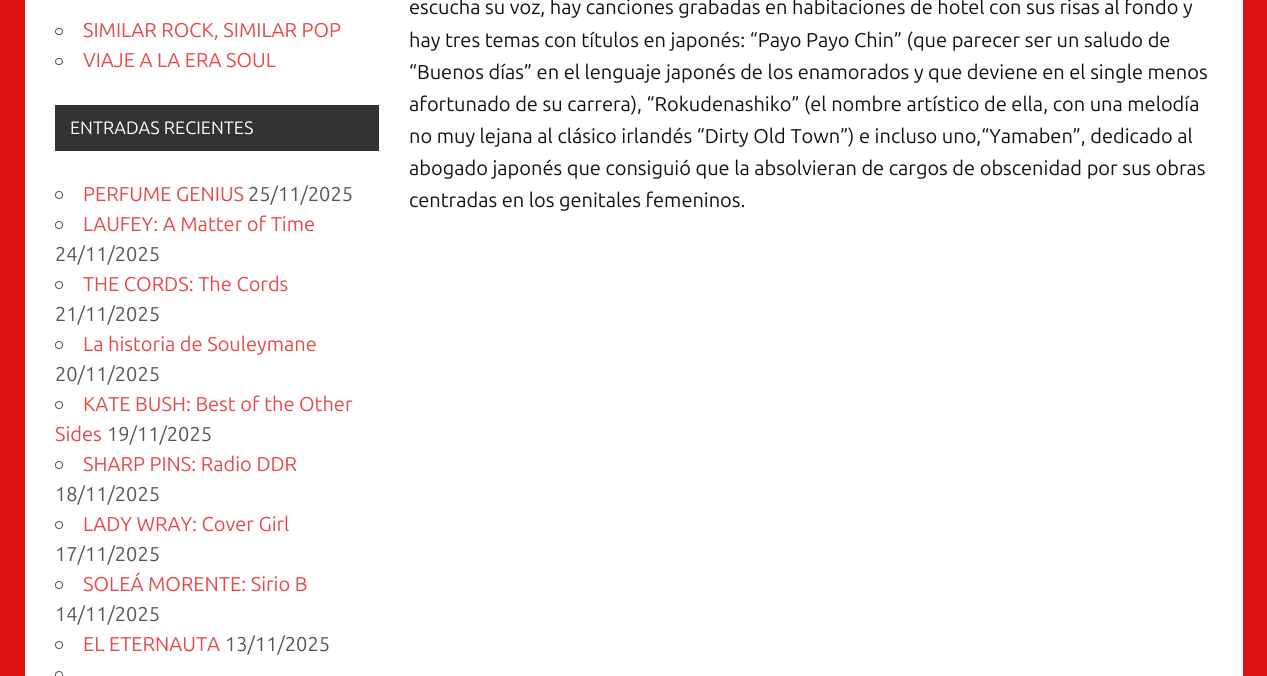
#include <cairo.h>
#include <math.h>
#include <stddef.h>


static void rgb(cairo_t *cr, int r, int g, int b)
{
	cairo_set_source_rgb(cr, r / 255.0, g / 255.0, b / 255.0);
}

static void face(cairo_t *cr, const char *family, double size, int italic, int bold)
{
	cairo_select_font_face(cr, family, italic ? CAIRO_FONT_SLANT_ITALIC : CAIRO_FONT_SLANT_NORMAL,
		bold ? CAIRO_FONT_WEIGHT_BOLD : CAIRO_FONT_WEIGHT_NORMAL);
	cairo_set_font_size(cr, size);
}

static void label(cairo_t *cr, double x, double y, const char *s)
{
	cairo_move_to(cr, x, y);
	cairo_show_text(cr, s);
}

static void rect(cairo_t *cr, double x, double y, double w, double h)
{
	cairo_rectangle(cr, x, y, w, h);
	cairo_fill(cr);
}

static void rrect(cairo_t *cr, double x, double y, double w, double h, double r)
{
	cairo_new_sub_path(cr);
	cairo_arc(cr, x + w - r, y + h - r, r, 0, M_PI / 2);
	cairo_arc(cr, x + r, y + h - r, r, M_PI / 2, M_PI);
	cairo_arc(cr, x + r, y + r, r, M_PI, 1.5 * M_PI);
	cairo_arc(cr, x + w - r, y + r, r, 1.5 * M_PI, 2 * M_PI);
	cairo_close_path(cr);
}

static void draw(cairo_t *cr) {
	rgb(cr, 221, 19, 19);
	cairo_paint(cr);
	rgb(cr, 255, 255, 255);
	rect(cr, 25, 0, 1218, 676);
	rrect(cr, 55.5, 28.5, 7, 6, 3);
	rgb(cr, 85, 85, 85);
	cairo_set_line_width(cr, 1);
	cairo_stroke(cr);
	face(cr, "Ubuntu", 20, 0, 0);
	rgb(cr, 232, 71, 71);
	label(cr, 83, 37, "SIMILAR ROCK, SIMILAR POP");
	rrect(cr, 55.5, 58.5, 7, 6, 3);
	rgb(cr, 85, 85, 85);
	cairo_stroke(cr);
	rgb(cr, 232, 71, 71);
	label(cr, 83, 67, "VIAJE A LA ERA SOUL");
	rgb(cr, 51, 51, 51);
	rect(cr, 55, 105, 324, 46);
	face(cr, "Ubuntu", 18, 0, 0);
	rgb(cr, 255, 255, 255);
	label(cr, 70, 134, "ENTRADAS RECIENTES");
	cairo_new_path(cr);
	cairo_arc(cr, 59, 195, 3.5, 0, 2 * M_PI);
	rgb(cr, 85, 85, 85);
	cairo_stroke(cr);
	face(cr, "Ubuntu", 20, 0, 0);
	rgb(cr, 232, 71, 71);
	label(cr, 83, 201, "PERFUME GENIUS");
	rgb(cr, 85, 85, 85);
	label(cr, 248, 201, "25/11/2025");
	cairo_new_path(cr);
	cairo_arc(cr, 59, 225, 3.5, 0, 2 * M_PI);
	cairo_stroke(cr);
	rgb(cr, 232, 71, 71);
	label(cr, 83, 231, "LAUFEY: A Matter of Time");
	rgb(cr, 85, 85, 85);
	label(cr, 55, 261, "24/11/2025");
	cairo_new_path(cr);
	cairo_arc(cr, 59, 285, 3.5, 0, 2 * M_PI);
	cairo_stroke(cr);
	rgb(cr, 232, 71, 71);
	label(cr, 83, 291, "THE CORDS: The Cords");
	rgb(cr, 85, 85, 85);
	label(cr, 55, 321, "21/11/2025");
	cairo_new_path(cr);
	cairo_arc(cr, 59, 345, 3.5, 0, 2 * M_PI);
	cairo_stroke(cr);
	rgb(cr, 232, 71, 71);
	label(cr, 83, 351, "La historia de Souleymane");
	rgb(cr, 85, 85, 85);
	label(cr, 55, 381, "20/11/2025");
	cairo_new_path(cr);
	cairo_arc(cr, 59, 405, 3.5, 0, 2 * M_PI);
	cairo_stroke(cr);
	rgb(cr, 232, 71, 71);
	label(cr, 83, 411, "KATE BUSH: Best of the Other");
	label(cr, 55, 441, "Sides");
	rgb(cr, 85, 85, 85);
	label(cr, 107, 441, "19/11/2025");
	cairo_new_path(cr);
	cairo_arc(cr, 59, 465, 3.5, 0, 2 * M_PI);
	cairo_stroke(cr);
	rgb(cr, 232, 71, 71);
	label(cr, 83, 471, "SHARP PINS: Radio DDR");
	rgb(cr, 85, 85, 85);
	label(cr, 55, 501, "18/11/2025");
	cairo_new_path(cr);
	cairo_arc(cr, 59, 525, 3.5, 0, 2 * M_PI);
	cairo_stroke(cr);
	rgb(cr, 232, 71, 71);
	label(cr, 83, 531, "LADY WRAY: Cover Girl");
	rgb(cr, 85, 85, 85);
	label(cr, 55, 561, "17/11/2025");
	cairo_new_path(cr);
	cairo_arc(cr, 59, 585, 3.5, 0, 2 * M_PI);
	cairo_stroke(cr);
	rgb(cr, 232, 71, 71);
	label(cr, 83, 591, "SOLEÁ MORENTE: Sirio B");
	rgb(cr, 85, 85, 85);
	label(cr, 55, 621, "14/11/2025");
	cairo_new_path(cr);
	cairo_arc(cr, 59, 645, 3.5, 0, 2 * M_PI);
	cairo_stroke(cr);
	rgb(cr, 232, 71, 71);
	label(cr, 83, 651, "EL ETERNAUTA");
	rgb(cr, 85, 85, 85);
	label(cr, 225, 651, "13/11/2025");
	cairo_new_path(cr);
	cairo_arc(cr, 59, 675, 3.5, 0, 2 * M_PI);
	cairo_stroke(cr);
	rgb(cr, 17, 17, 17);
	label(cr, 409, 14, "escucha su voz, hay canciones grabadas en habitaciones de hotel con sus risas al fondo y");
	label(cr, 409, 47, "hay tres temas con títulos en japonés: “Payo Payo Chin” (que parecer ser un saludo de");
	label(cr, 409, 79, "“Buenos días” en el lenguaje japonés de los enamorados y que deviene en el single menos");
	label(cr, 409, 111, "afortunado de su carrera), “Rokudenashiko” (el nombre artístico de ella, con una melodía");
	label(cr, 409, 143, "no muy lejana al clásico irlandés “Dirty Old Town”) e incluso uno,“Yamaben”, dedicado al");
	label(cr, 409, 175, "abogado japonés que consiguió que la absolvieran de cargos de obscenidad por sus obras");
	label(cr, 409, 207, "centradas en los genitales femeninos.");
}

int main(void) {
	cairo_surface_t *surface = cairo_image_surface_create(CAIRO_FORMAT_RGB24, 1267, 676);
	cairo_t *cr = cairo_create(surface);
	cairo_font_options_t *options = cairo_font_options_create();
	cairo_font_options_set_hint_metrics(options, CAIRO_HINT_METRICS_OFF);
	cairo_font_options_set_hint_style(options, CAIRO_HINT_STYLE_NONE);
	cairo_set_font_options(cr, options);
	cairo_set_miter_limit(cr, 4);
	draw(cr);
	cairo_surface_write_to_png(surface, "render.png");
	cairo_font_options_destroy(options);
	cairo_destroy(cr);
	cairo_surface_destroy(surface);
	return 0;
}
